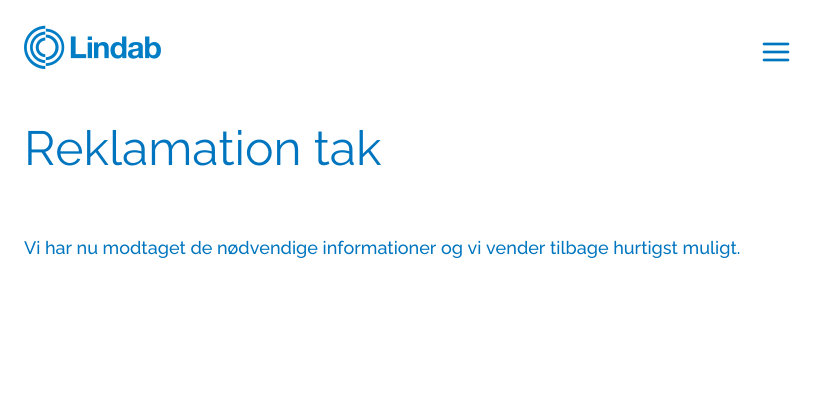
#include <cairo.h>
#include <math.h>
#include <stddef.h>


static void rgb(cairo_t *cr, int r, int g, int b)
{
	cairo_set_source_rgb(cr, r / 255.0, g / 255.0, b / 255.0);
}

static void face(cairo_t *cr, const char *family, double size, int italic, int bold)
{
	cairo_select_font_face(cr, family, italic ? CAIRO_FONT_SLANT_ITALIC : CAIRO_FONT_SLANT_NORMAL,
		bold ? CAIRO_FONT_WEIGHT_BOLD : CAIRO_FONT_WEIGHT_NORMAL);
	cairo_set_font_size(cr, size);
}

static void label(cairo_t *cr, double x, double y, const char *s)
{
	cairo_move_to(cr, x, y);
	cairo_show_text(cr, s);
}

static void image(cairo_t *cr, const char *path, double x, double y, double w, double h)
{
	cairo_surface_t *image = cairo_image_surface_create_from_png(path);
	cairo_save(cr);
	cairo_set_source_surface(cr, image, x, y);
	cairo_rectangle(cr, x, y, w, h);
	cairo_fill(cr);
	cairo_restore(cr);
	cairo_surface_destroy(image);
}

static void draw(cairo_t *cr) {
	rgb(cr, 255, 255, 255);
	cairo_paint(cr);
	image(cr, "image0.png", 24, 25, 137, 45);
	cairo_new_path(cr);
	cairo_move_to(cr, 764, 52);
	cairo_line_to(cr, 788, 52);
	cairo_move_to(cr, 764, 44);
	cairo_line_to(cr, 788, 44);
	cairo_move_to(cr, 764, 60);
	cairo_line_to(cr, 788, 60);
	rgb(cr, 0, 117, 191);
	cairo_set_line_width(cr, 2.7);
	cairo_set_line_cap(cr, CAIRO_LINE_CAP_ROUND);
	cairo_set_line_join(cr, CAIRO_LINE_JOIN_ROUND);
	cairo_stroke(cr);
	face(cr, "Raleway Thin", 48, 0, 0);
	label(cr, 24, 165, "Reklamation tak");
	face(cr, "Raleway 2 Thin", 18, 0, 0);
	label(cr, 24, 254, "Vi har nu modtaget de nødvendige informationer og vi vender tilbage hurtigst muligt.");
}

int main(void) {
	cairo_surface_t *surface = cairo_image_surface_create(CAIRO_FORMAT_RGB24, 840, 417);
	cairo_t *cr = cairo_create(surface);
	cairo_font_options_t *options = cairo_font_options_create();
	cairo_font_options_set_hint_metrics(options, CAIRO_HINT_METRICS_OFF);
	cairo_font_options_set_hint_style(options, CAIRO_HINT_STYLE_NONE);
	cairo_set_font_options(cr, options);
	cairo_set_miter_limit(cr, 4);
	draw(cr);
	cairo_surface_write_to_png(surface, "render.png");
	cairo_font_options_destroy(options);
	cairo_destroy(cr);
	cairo_surface_destroy(surface);
	return 0;
}
